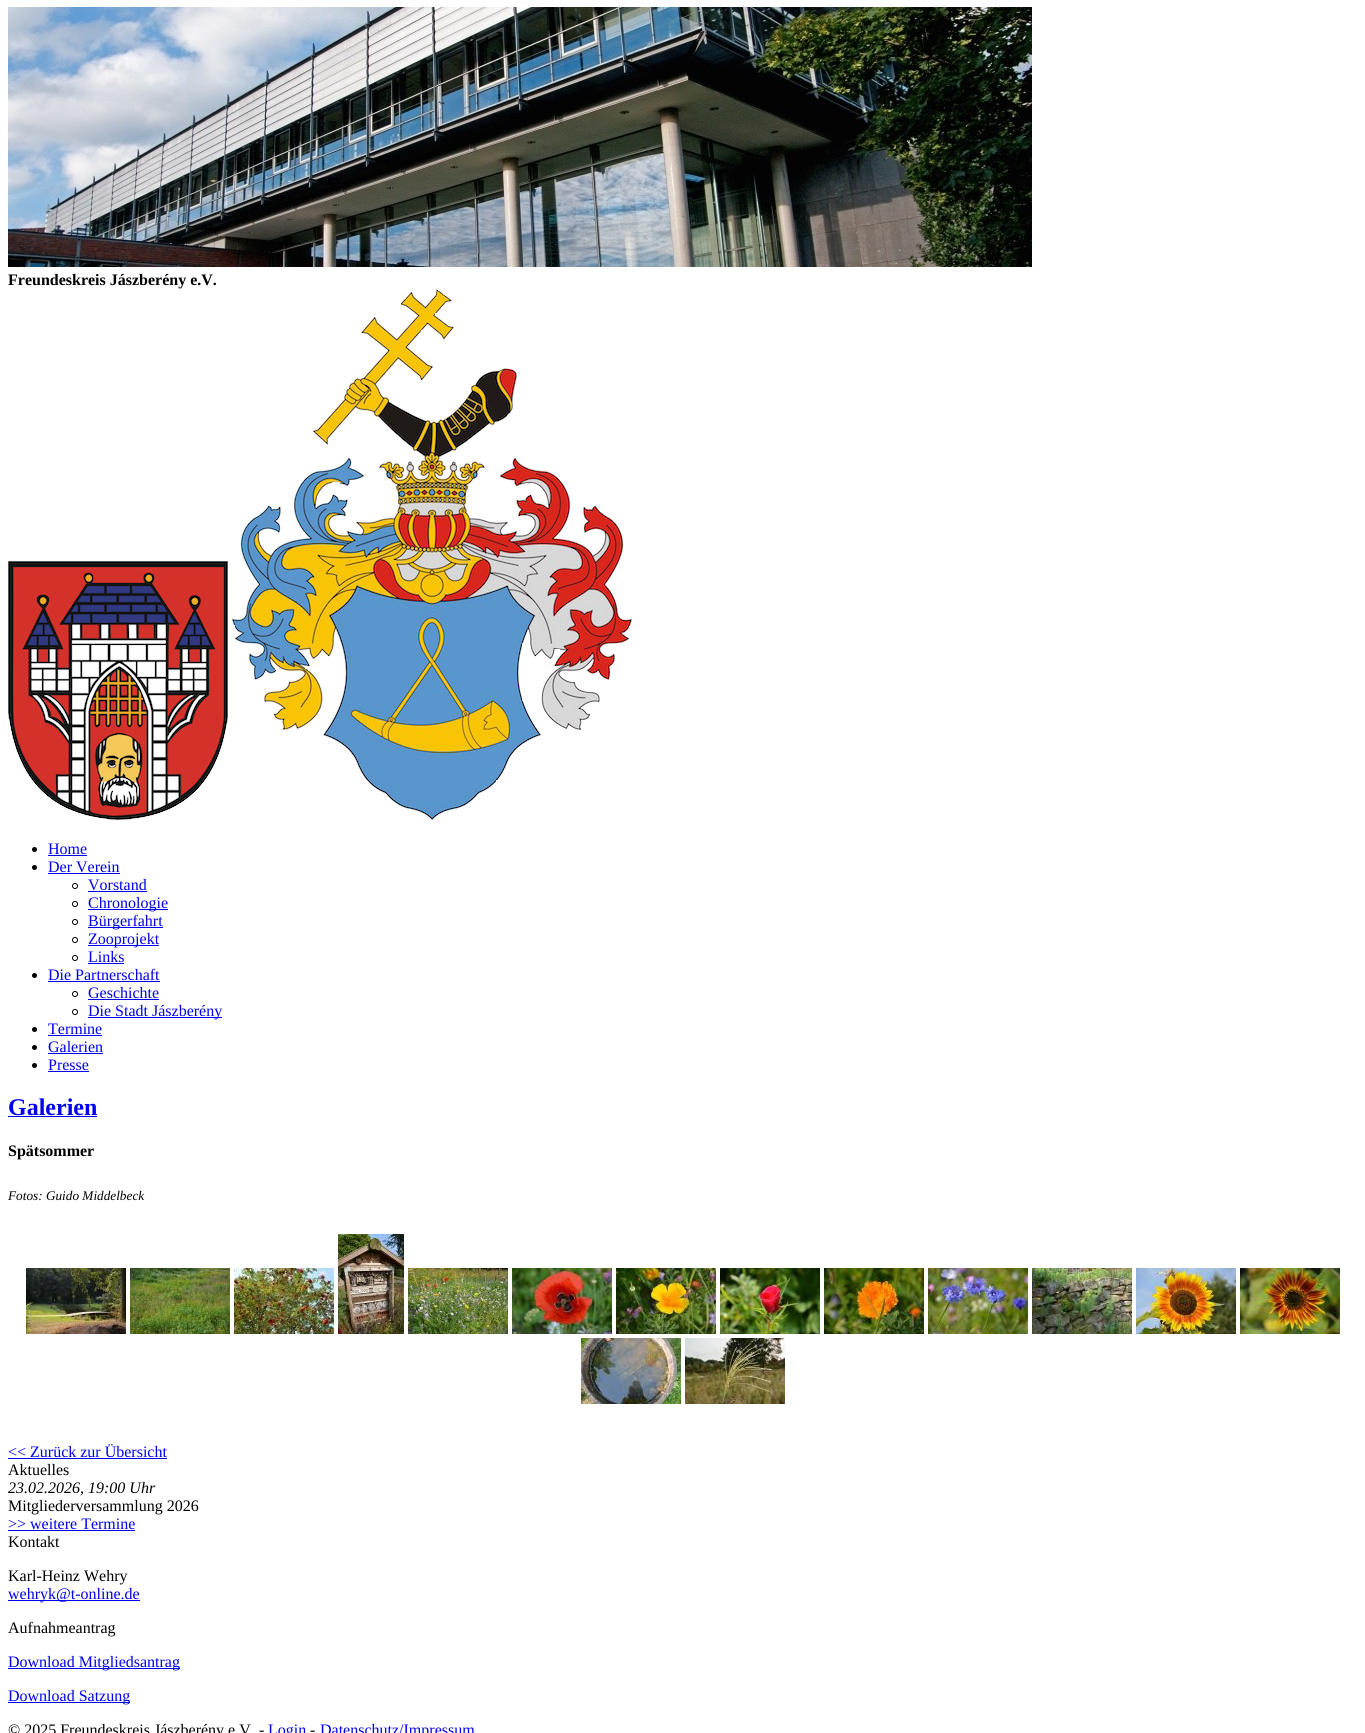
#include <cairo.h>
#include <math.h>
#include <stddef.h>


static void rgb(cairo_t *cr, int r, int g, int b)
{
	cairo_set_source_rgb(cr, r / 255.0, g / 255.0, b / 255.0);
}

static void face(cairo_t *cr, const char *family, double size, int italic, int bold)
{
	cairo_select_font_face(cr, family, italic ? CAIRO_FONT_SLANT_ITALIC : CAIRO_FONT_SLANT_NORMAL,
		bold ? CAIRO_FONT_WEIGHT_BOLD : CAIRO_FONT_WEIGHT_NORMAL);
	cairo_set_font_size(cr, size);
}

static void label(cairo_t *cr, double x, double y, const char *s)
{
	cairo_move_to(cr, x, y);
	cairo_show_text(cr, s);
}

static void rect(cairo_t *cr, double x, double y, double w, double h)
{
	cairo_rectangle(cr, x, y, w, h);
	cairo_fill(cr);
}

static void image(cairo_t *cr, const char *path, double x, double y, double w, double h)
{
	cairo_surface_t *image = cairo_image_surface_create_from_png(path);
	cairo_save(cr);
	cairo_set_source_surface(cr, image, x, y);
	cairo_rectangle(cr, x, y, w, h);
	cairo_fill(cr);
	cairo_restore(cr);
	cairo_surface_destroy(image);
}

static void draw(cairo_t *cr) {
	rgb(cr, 255, 255, 255);
	cairo_paint(cr);
	image(cr, "image0.png", 8, 7, 1024, 260);
	face(cr, "Liberation Serif", 16, 0, 1);
	rgb(cr, 0, 0, 0);
	label(cr, 8, 285, "Freundeskreis Jászberény e.V.");
	image(cr, "image1.png", 8, 561, 220, 259);
	image(cr, "image2.png", 232, 289, 400, 531);
	cairo_arc(cr, 34.5, 849.5, 2.5, 0, 2 * M_PI);
	cairo_fill(cr);
	face(cr, "Liberation Serif", 16, 0, 0);
	rgb(cr, 0, 0, 238);
	label(cr, 48, 854, "Home");
	rect(cr, 48, 855, 39, 1);
	rgb(cr, 0, 0, 0);
	cairo_new_path(cr);
	cairo_arc(cr, 34.5, 867.5, 2.5, 0, 2 * M_PI);
	cairo_fill(cr);
	rgb(cr, 0, 0, 238);
	label(cr, 48, 872, "Der Verein");
	rect(cr, 48, 873, 72, 1);
	cairo_new_path(cr);
	cairo_arc(cr, 75, 886, 2.5, 0, 2 * M_PI);
	rgb(cr, 0, 0, 0);
	cairo_set_line_width(cr, 1);
	cairo_stroke(cr);
	rgb(cr, 0, 0, 238);
	label(cr, 88, 890, "Vorstand");
	rect(cr, 88, 891, 59, 1);
	cairo_new_path(cr);
	cairo_arc(cr, 75, 904, 2.5, 0, 2 * M_PI);
	rgb(cr, 0, 0, 0);
	cairo_stroke(cr);
	rgb(cr, 0, 0, 238);
	rect(cr, 88, 909, 80, 1);
	label(cr, 88, 908, "Chronologie");
	cairo_new_path(cr);
	cairo_arc(cr, 75, 922, 2.5, 0, 2 * M_PI);
	rgb(cr, 0, 0, 0);
	cairo_stroke(cr);
	rgb(cr, 0, 0, 238);
	rect(cr, 88, 927, 75, 1);
	label(cr, 88, 926, "Bürgerfahrt");
	cairo_new_path(cr);
	cairo_arc(cr, 75, 940, 2.5, 0, 2 * M_PI);
	rgb(cr, 0, 0, 0);
	cairo_stroke(cr);
	rgb(cr, 0, 0, 238);
	rect(cr, 88, 945, 71, 1);
	label(cr, 88, 944, "Zooprojekt");
	cairo_new_path(cr);
	cairo_arc(cr, 75, 958, 2.5, 0, 2 * M_PI);
	rgb(cr, 0, 0, 0);
	cairo_stroke(cr);
	rgb(cr, 0, 0, 238);
	label(cr, 88, 962, "Links");
	rect(cr, 88, 963, 36, 1);
	rgb(cr, 0, 0, 0);
	cairo_new_path(cr);
	cairo_arc(cr, 34.5, 975.5, 2.5, 0, 2 * M_PI);
	cairo_fill(cr);
	rgb(cr, 0, 0, 238);
	label(cr, 48, 980, "Die Partnerschaft");
	rect(cr, 48, 981, 112, 1);
	cairo_new_path(cr);
	cairo_arc(cr, 75, 994, 2.5, 0, 2 * M_PI);
	rgb(cr, 0, 0, 0);
	cairo_stroke(cr);
	rgb(cr, 0, 0, 238);
	label(cr, 88, 998, "Geschichte");
	rect(cr, 88, 999, 71, 1);
	cairo_new_path(cr);
	cairo_arc(cr, 75, 1012, 2.5, 0, 2 * M_PI);
	rgb(cr, 0, 0, 0);
	cairo_stroke(cr);
	rgb(cr, 0, 0, 238);
	rect(cr, 88, 1017, 134, 1);
	label(cr, 88, 1016, "Die Stadt Jászberény");
	rgb(cr, 0, 0, 0);
	cairo_new_path(cr);
	cairo_arc(cr, 34.5, 1029.5, 2.5, 0, 2 * M_PI);
	cairo_fill(cr);
	rgb(cr, 0, 0, 238);
	label(cr, 48, 1034, "Termine");
	rect(cr, 48, 1035, 54, 1);
	rgb(cr, 0, 0, 0);
	cairo_new_path(cr);
	cairo_arc(cr, 34.5, 1047.5, 2.5, 0, 2 * M_PI);
	cairo_fill(cr);
	rgb(cr, 0, 0, 238);
	label(cr, 48, 1052, "Galerien");
	rect(cr, 48, 1053, 55, 1);
	rgb(cr, 0, 0, 0);
	cairo_new_path(cr);
	cairo_arc(cr, 34.5, 1065.5, 2.5, 0, 2 * M_PI);
	cairo_fill(cr);
	rgb(cr, 0, 0, 238);
	label(cr, 48, 1070, "Presse");
	rect(cr, 48, 1071, 41, 1);
	face(cr, "Liberation Serif", 24, 0, 1);
	label(cr, 8, 1115, "Galerien");
	rect(cr, 8, 1116, 89, 1);
	face(cr, "Liberation Serif", 16, 0, 1);
	rgb(cr, 0, 0, 0);
	label(cr, 8, 1156, "Spätsommer");
	face(cr, "Liberation Serif", 13.25, 1, 0);
	label(cr, 8, 1200, "Fotos: Guido Middelbeck");
	image(cr, "image3.png", 26, 1268, 100, 66);
	image(cr, "image4.png", 130, 1268, 100, 66);
	image(cr, "image5.png", 234, 1268, 100, 66);
	image(cr, "image6.png", 338, 1234, 66, 100);
	image(cr, "image7.png", 408, 1268, 100, 66);
	image(cr, "image8.png", 512, 1268, 100, 66);
	image(cr, "image9.png", 616, 1268, 100, 66);
	image(cr, "image10.png", 720, 1268, 100, 66);
	image(cr, "image11.png", 824, 1268, 100, 66);
	image(cr, "image12.png", 928, 1268, 100, 66);
	image(cr, "image13.png", 1032, 1268, 100, 66);
	image(cr, "image14.png", 1136, 1268, 100, 66);
	image(cr, "image15.png", 1240, 1268, 100, 66);
	image(cr, "image16.png", 581, 1338, 100, 66);
	image(cr, "image17.png", 685, 1338, 100, 66);
	face(cr, "Liberation Serif", 16, 0, 0);
	rgb(cr, 0, 0, 238);
	label(cr, 8, 1457, "<< Zurück zur Übersicht");
	rect(cr, 8, 1458, 159, 1);
	rgb(cr, 0, 0, 0);
	label(cr, 8, 1475, "Aktuelles");
	face(cr, "Liberation Serif", 16, 1, 0);
	label(cr, 8, 1493, "23.02.2026, 19:00 Uhr");
	face(cr, "Liberation Serif", 16, 0, 0);
	label(cr, 8, 1511, "Mitgliederversammlung 2026");
	rgb(cr, 0, 0, 238);
	label(cr, 8, 1529, ">> weitere Termine");
	rect(cr, 8, 1530, 127, 1);
	rgb(cr, 0, 0, 0);
	label(cr, 8, 1547, "Kontakt");
	label(cr, 8, 1581, "Karl-Heinz Wehry");
	rgb(cr, 0, 0, 238);
	rect(cr, 8, 1600, 132, 1);
	label(cr, 8, 1599, "wehryk@t-online.de");
	rgb(cr, 0, 0, 0);
	label(cr, 8, 1633, "Aufnahmeantrag");
	rgb(cr, 0, 0, 238);
	rect(cr, 8, 1668, 172, 1);
	label(cr, 8, 1667, "Download Mitgliedsantrag");
	rect(cr, 8, 1702, 122, 1);
	label(cr, 8, 1701, "Download Satzung");
	rgb(cr, 0, 0, 0);
	label(cr, 8, 1735, "© 2025 Freundeskreis Jászberény e.V");
	label(cr, 259, 1735, "-");
	rgb(cr, 0, 0, 238);
	label(cr, 268, 1735, "Login");
	rgb(cr, 0, 0, 0);
	label(cr, 310, 1735, "-");
	rgb(cr, 0, 0, 238);
	label(cr, 320, 1735, "Datenschutz/Impressum");
}

int main(void) {
	cairo_surface_t *surface = cairo_image_surface_create(CAIRO_FORMAT_RGB24, 1365, 1733);
	cairo_t *cr = cairo_create(surface);
	cairo_font_options_t *options = cairo_font_options_create();
	cairo_font_options_set_hint_metrics(options, CAIRO_HINT_METRICS_OFF);
	cairo_font_options_set_hint_style(options, CAIRO_HINT_STYLE_NONE);
	cairo_set_font_options(cr, options);
	cairo_set_miter_limit(cr, 4);
	draw(cr);
	cairo_surface_write_to_png(surface, "render.png");
	cairo_font_options_destroy(options);
	cairo_destroy(cr);
	cairo_surface_destroy(surface);
	return 0;
}
